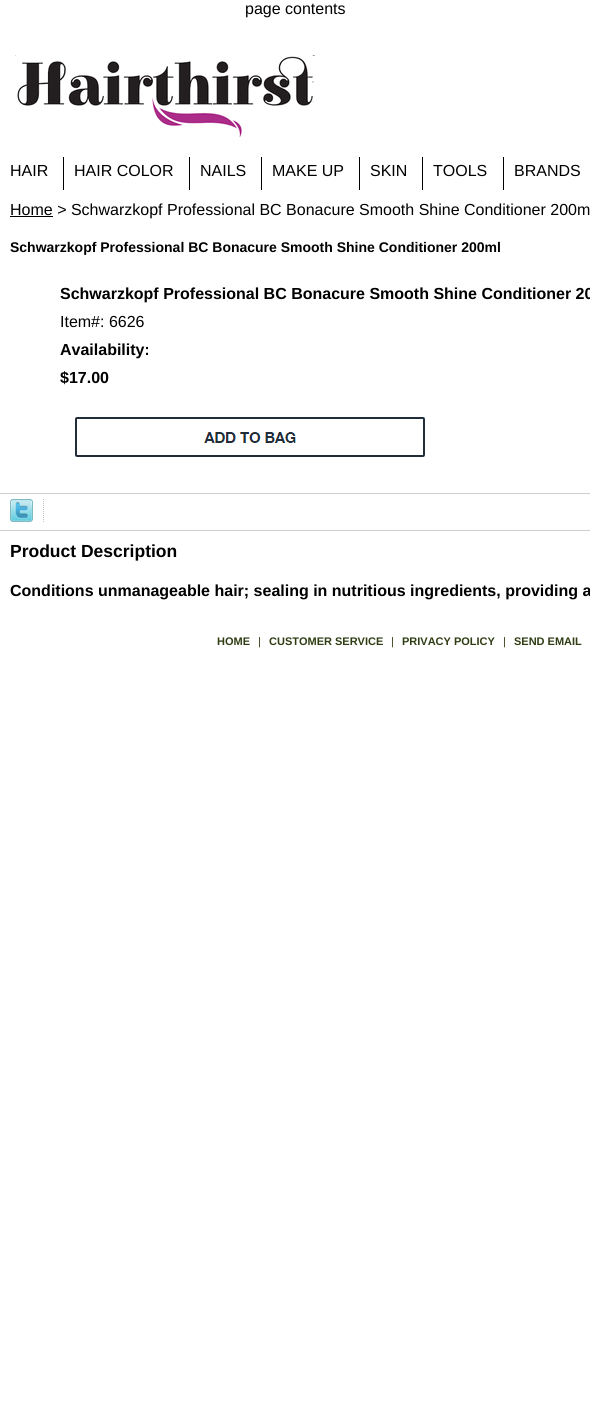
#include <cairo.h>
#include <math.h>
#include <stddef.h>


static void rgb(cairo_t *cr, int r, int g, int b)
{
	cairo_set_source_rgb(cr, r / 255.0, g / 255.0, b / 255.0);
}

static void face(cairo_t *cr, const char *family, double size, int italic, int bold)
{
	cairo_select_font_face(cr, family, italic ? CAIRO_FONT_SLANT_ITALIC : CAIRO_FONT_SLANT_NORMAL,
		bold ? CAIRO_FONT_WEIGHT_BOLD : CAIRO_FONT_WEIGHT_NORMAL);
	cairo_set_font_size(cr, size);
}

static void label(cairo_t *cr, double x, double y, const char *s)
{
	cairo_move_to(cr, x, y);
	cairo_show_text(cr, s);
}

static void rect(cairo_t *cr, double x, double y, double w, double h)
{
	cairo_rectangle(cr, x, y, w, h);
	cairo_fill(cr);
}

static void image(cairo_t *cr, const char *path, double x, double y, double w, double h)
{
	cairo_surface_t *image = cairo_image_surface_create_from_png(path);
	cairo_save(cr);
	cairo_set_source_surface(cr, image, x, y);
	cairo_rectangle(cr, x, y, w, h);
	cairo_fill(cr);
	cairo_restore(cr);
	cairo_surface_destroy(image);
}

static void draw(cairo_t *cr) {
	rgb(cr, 255, 255, 255);
	cairo_paint(cr);
	face(cr, "Liberation Sans", 16, 0, 0);
	rgb(cr, 0, 0, 0);
	label(cr, 245, 14, "page contents");
	image(cr, "image0.png", 15, 55, 300, 82);
	label(cr, 10, 176, "HAIR");
	rect(cr, 63, 157, 1, 33);
	label(cr, 74, 176, "HAIR COLOR");
	rect(cr, 189, 157, 1, 33);
	label(cr, 200, 176, "NAILS");
	rect(cr, 261, 157, 1, 33);
	label(cr, 272, 176, "MAKE UP");
	rect(cr, 359, 157, 1, 33);
	label(cr, 370, 176, "SKIN");
	rect(cr, 422, 157, 1, 33);
	label(cr, 433, 176, "TOOLS");
	rect(cr, 503, 157, 1, 33);
	label(cr, 514, 176, "BRANDS");
	rect(cr, 10, 216, 43, 1);
	label(cr, 10, 215, "Home > Schwarzkopf Professional BC Bonacure Smooth Shine Conditioner 200m");
	face(cr, "Liberation Sans", 14, 0, 1);
	label(cr, 10, 252, "Schwarzkopf Professional BC Bonacure Smooth Shine Conditioner 200ml");
	face(cr, "Liberation Sans", 16, 0, 1);
	label(cr, 60, 299, "Schwarzkopf Professional BC Bonacure Smooth Shine Conditioner 20");
	face(cr, "Liberation Sans", 16, 0, 0);
	label(cr, 60, 327, "Item#: 6626");
	face(cr, "Liberation Sans", 16, 0, 1);
	label(cr, 60, 355, "Availability:");
	label(cr, 60, 383, "$17.00");
	image(cr, "image1.png", 75, 417, 350, 40);
	rgb(cr, 207, 206, 206);
	rect(cr, 0, 493, 590, 1);
	image(cr, "image2.png", 10, 499, 23, 23);
	image(cr, "image3.png", 43, 499, 1, 23);
	rect(cr, 0, 530, 590, 1);
	face(cr, "Liberation Sans", 17.5, 0, 1);
	rgb(cr, 0, 0, 0);
	label(cr, 10, 557, "Product Description");
	face(cr, "Liberation Sans", 16, 0, 1);
	label(cr, 10, 596, "Conditions unmanageable hair; sealing in nutritious ingredients, providing a");
	face(cr, "Liberation Sans", 11, 0, 1);
	rgb(cr, 48, 61, 19);
	label(cr, 217, 645, "HOME");
	face(cr, "Liberation Sans", 11, 0, 0);
	label(cr, 258, 645, "|");
	face(cr, "Liberation Sans", 11, 0, 1);
	label(cr, 269, 645, "CUSTOMER SERVICE");
	face(cr, "Liberation Sans", 11, 0, 0);
	label(cr, 391, 645, "|");
	face(cr, "Liberation Sans", 11, 0, 1);
	label(cr, 402, 645, "PRIVACY POLICY");
	face(cr, "Liberation Sans", 11, 0, 0);
	label(cr, 503, 645, "|");
	face(cr, "Liberation Sans", 11, 0, 1);
	label(cr, 514, 645, "SEND EMAIL");
}

int main(void) {
	cairo_surface_t *surface = cairo_image_surface_create(CAIRO_FORMAT_RGB24, 590, 1419);
	cairo_t *cr = cairo_create(surface);
	cairo_font_options_t *options = cairo_font_options_create();
	cairo_font_options_set_hint_metrics(options, CAIRO_HINT_METRICS_OFF);
	cairo_font_options_set_hint_style(options, CAIRO_HINT_STYLE_NONE);
	cairo_set_font_options(cr, options);
	cairo_set_miter_limit(cr, 4);
	draw(cr);
	cairo_surface_write_to_png(surface, "render.png");
	cairo_font_options_destroy(options);
	cairo_destroy(cr);
	cairo_surface_destroy(surface);
	return 0;
}
